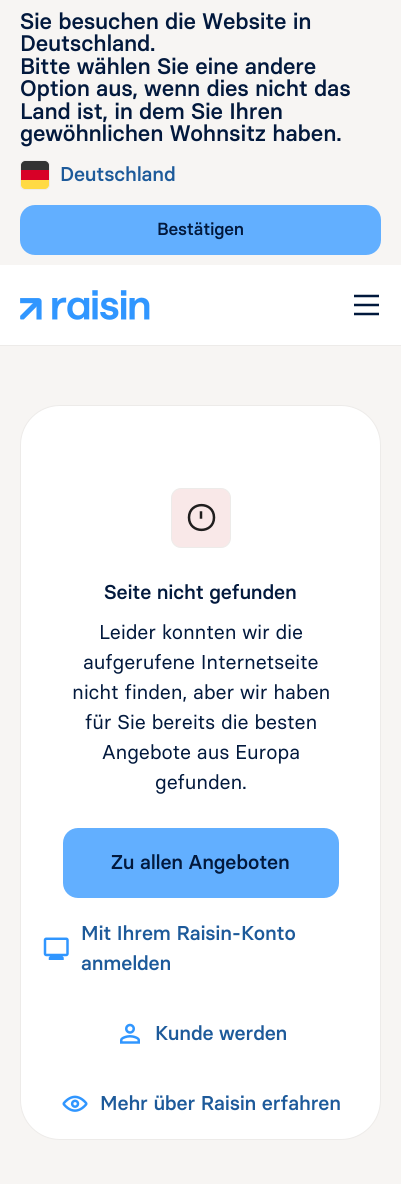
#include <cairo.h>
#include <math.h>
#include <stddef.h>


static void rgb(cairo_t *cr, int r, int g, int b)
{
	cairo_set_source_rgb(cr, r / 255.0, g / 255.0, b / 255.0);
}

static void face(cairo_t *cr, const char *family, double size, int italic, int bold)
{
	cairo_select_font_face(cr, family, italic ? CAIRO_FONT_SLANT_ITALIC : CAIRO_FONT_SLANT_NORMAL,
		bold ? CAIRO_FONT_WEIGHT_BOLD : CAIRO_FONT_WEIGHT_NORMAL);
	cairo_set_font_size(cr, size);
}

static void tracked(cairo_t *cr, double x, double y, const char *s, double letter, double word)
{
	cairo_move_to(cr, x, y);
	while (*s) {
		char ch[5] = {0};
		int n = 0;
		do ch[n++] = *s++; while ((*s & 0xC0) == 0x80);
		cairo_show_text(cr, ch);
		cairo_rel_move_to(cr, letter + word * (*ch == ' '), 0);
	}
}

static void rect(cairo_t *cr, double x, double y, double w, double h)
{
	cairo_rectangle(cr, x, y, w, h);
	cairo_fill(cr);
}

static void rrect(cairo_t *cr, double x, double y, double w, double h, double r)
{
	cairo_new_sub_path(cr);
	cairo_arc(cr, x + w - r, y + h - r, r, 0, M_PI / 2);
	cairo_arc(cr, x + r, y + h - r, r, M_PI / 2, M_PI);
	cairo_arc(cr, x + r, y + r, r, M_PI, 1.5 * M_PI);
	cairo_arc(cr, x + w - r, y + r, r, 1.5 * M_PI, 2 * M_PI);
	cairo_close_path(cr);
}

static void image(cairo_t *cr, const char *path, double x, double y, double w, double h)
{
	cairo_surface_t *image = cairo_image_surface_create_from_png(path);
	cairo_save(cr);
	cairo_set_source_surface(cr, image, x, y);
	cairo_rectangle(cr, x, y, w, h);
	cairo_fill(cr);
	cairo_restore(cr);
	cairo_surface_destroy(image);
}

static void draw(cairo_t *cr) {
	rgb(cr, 247, 245, 243);
	cairo_paint(cr);
	face(cr, "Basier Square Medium", 22.5, 0, 0);
	rgb(cr, 2, 25, 61);
	tracked(cr, 20, 29, "Sie besuchen die Website in", -0.15, 0);
	tracked(cr, 20, 51, "Deutschland.", -0.15, 0);
	tracked(cr, 20, 74, "Bitte wählen Sie eine andere", -0.15, 0);
	tracked(cr, 20, 96, "Option aus, wenn dies nicht das", -0.15, 0);
	tracked(cr, 20, 119, "Land ist, in dem Sie Ihren", -0.15, 0);
	tracked(cr, 20, 141, "gewöhnlichen Wohnsitz haben.", -0.15, 0);
	rrect(cr, 20.5, 160.5, 29, 29, 4.5);
	rgb(cr, 237, 235, 233);
	cairo_set_line_width(cr, 1);
	cairo_stroke(cr);
	rgb(cr, 216, 0, 39);
	rect(cr, 21, 170, 28, 10);
	rgb(cr, 255, 218, 68);
	cairo_new_path(cr);
	cairo_move_to(cr, 21, 180);
	cairo_line_to(cr, 49, 180);
	cairo_line_to(cr, 49, 185);
	cairo_curve_to(cr, 49, 187, 47, 189, 45, 189);
	cairo_line_to(cr, 25, 189);
	cairo_curve_to(cr, 23, 189, 21, 187, 21, 185);
	cairo_close_path(cr);
	cairo_fill(cr);
	rgb(cr, 51, 51, 51);
	cairo_new_path(cr);
	cairo_move_to(cr, 25, 161);
	cairo_line_to(cr, 45, 161);
	cairo_curve_to(cr, 47, 161, 49, 163, 49, 165);
	cairo_line_to(cr, 49, 170);
	cairo_line_to(cr, 21, 170);
	cairo_line_to(cr, 21, 165);
	cairo_curve_to(cr, 21, 163, 23, 161, 25, 161);
	cairo_close_path(cr);
	cairo_fill(cr);
	face(cr, "Basier Square Medium", 20, 0, 0);
	rgb(cr, 29, 90, 154);
	tracked(cr, 60, 181, "Deutschland", -0.15, 0);
	rgb(cr, 98, 175, 255);
	rrect(cr, 21.5, 206.5, 358, 47, 13.5);
	cairo_fill_preserve(cr);
	cairo_set_line_width(cr, 3);
	cairo_stroke(cr);
	face(cr, "Basier Square Medium", 17.5, 0, 0);
	rgb(cr, 2, 25, 61);
	tracked(cr, 157, 235, "Bestätigen", -0.15, 0);
	rgb(cr, 255, 255, 255);
	rect(cr, 0, 265, 401, 80);
	image(cr, "image0.png", 20, 290, 130, 30);
	cairo_new_path(cr);
	cairo_move_to(cr, 354, 296);
	cairo_line_to(cr, 379, 296);
	cairo_move_to(cr, 354, 305);
	cairo_line_to(cr, 379, 305);
	cairo_move_to(cr, 354, 314);
	cairo_line_to(cr, 379, 314);
	rgb(cr, 0, 24, 60);
	cairo_set_line_width(cr, 2.5);
	cairo_stroke(cr);
	rgb(cr, 237, 235, 233);
	rect(cr, 0, 345, 401, 1);
	rgb(cr, 255, 255, 255);
	rrect(cr, 20.5, 405.5, 360, 734, 39.5);
	cairo_fill_preserve(cr);
	rgb(cr, 237, 235, 233);
	cairo_set_line_width(cr, 1);
	cairo_stroke(cr);
	rgb(cr, 249, 232, 232);
	rrect(cr, 171.5, 488.5, 59, 59, 9.5);
	cairo_fill_preserve(cr);
	rgb(cr, 237, 235, 233);
	cairo_stroke(cr);
	cairo_new_path(cr);
	cairo_move_to(cr, 201, 512.5);
	cairo_line_to(cr, 201, 517.5);
	cairo_move_to(cr, 201, 522.5);
	cairo_line_to(cr, 201, 522.5);
	cairo_move_to(cr, 189, 517.5);
	cairo_curve_to(cr, 189, 501, 214, 501, 214, 517.5);
	cairo_curve_to(cr, 214, 534, 189, 534, 189, 517.5);
	cairo_close_path(cr);
	rgb(cr, 32, 30, 30);
	cairo_set_line_width(cr, 2.5);
	cairo_set_line_cap(cr, CAIRO_LINE_CAP_SQUARE);
	cairo_set_line_join(cr, CAIRO_LINE_JOIN_ROUND);
	cairo_stroke(cr);
	face(cr, "Basier Square Medium", 20, 0, 0);
	rgb(cr, 2, 25, 61);
	tracked(cr, 104, 599, "Seite nicht gefunden", -0.15, 0);
	face(cr, "Basier Square", 20, 0, 0);
	tracked(cr, 99, 639, "Leider konnten wir die", -0.15, 0);
	tracked(cr, 83, 669, "aufgerufene Internetseite", -0.15, 0);
	tracked(cr, 72, 699, "nicht finden, aber wir haben", -0.15, 0);
	tracked(cr, 85, 729, "für Sie bereits die besten", -0.15, 0);
	tracked(cr, 102, 759, "Angebote aus Europa", -0.15, 0);
	tracked(cr, 155, 789, "gefunden.", -0.15, 0);
	rgb(cr, 98, 175, 255);
	rrect(cr, 64.5, 829.5, 273, 67, 13.5);
	cairo_fill_preserve(cr);
	cairo_set_line_width(cr, 3);
	cairo_set_line_cap(cr, CAIRO_LINE_CAP_BUTT);
	cairo_set_line_join(cr, CAIRO_LINE_JOIN_MITER);
	cairo_stroke(cr);
	face(cr, "Basier Square Medium", 20, 0, 0);
	rgb(cr, 2, 25, 61);
	tracked(cr, 111, 869, "Zu allen Angeboten", -0.15, 0);
	image(cr, "image1.png", 43, 937, 26, 23);
	rgb(cr, 29, 90, 154);
	tracked(cr, 81, 940, "Mit Ihrem Raisin-Konto", -0.15, 0);
	tracked(cr, 81, 970, "anmelden", -0.15, 0);
	image(cr, "image2.png", 120, 1023, 20, 21);
	tracked(cr, 155, 1040, "Kunde werden", -0.15, 0);
	image(cr, "image3.png", 62, 1095, 26, 17);
	tracked(cr, 100, 1110, "Mehr über Raisin erfahren", -0.15, 0);
}

int main(void) {
	cairo_surface_t *surface = cairo_image_surface_create(CAIRO_FORMAT_RGB24, 401, 1184);
	cairo_t *cr = cairo_create(surface);
	cairo_font_options_t *options = cairo_font_options_create();
	cairo_font_options_set_hint_metrics(options, CAIRO_HINT_METRICS_OFF);
	cairo_font_options_set_hint_style(options, CAIRO_HINT_STYLE_NONE);
	cairo_set_font_options(cr, options);
	cairo_set_miter_limit(cr, 4);
	draw(cr);
	cairo_surface_write_to_png(surface, "render.png");
	cairo_font_options_destroy(options);
	cairo_destroy(cr);
	cairo_surface_destroy(surface);
	return 0;
}
